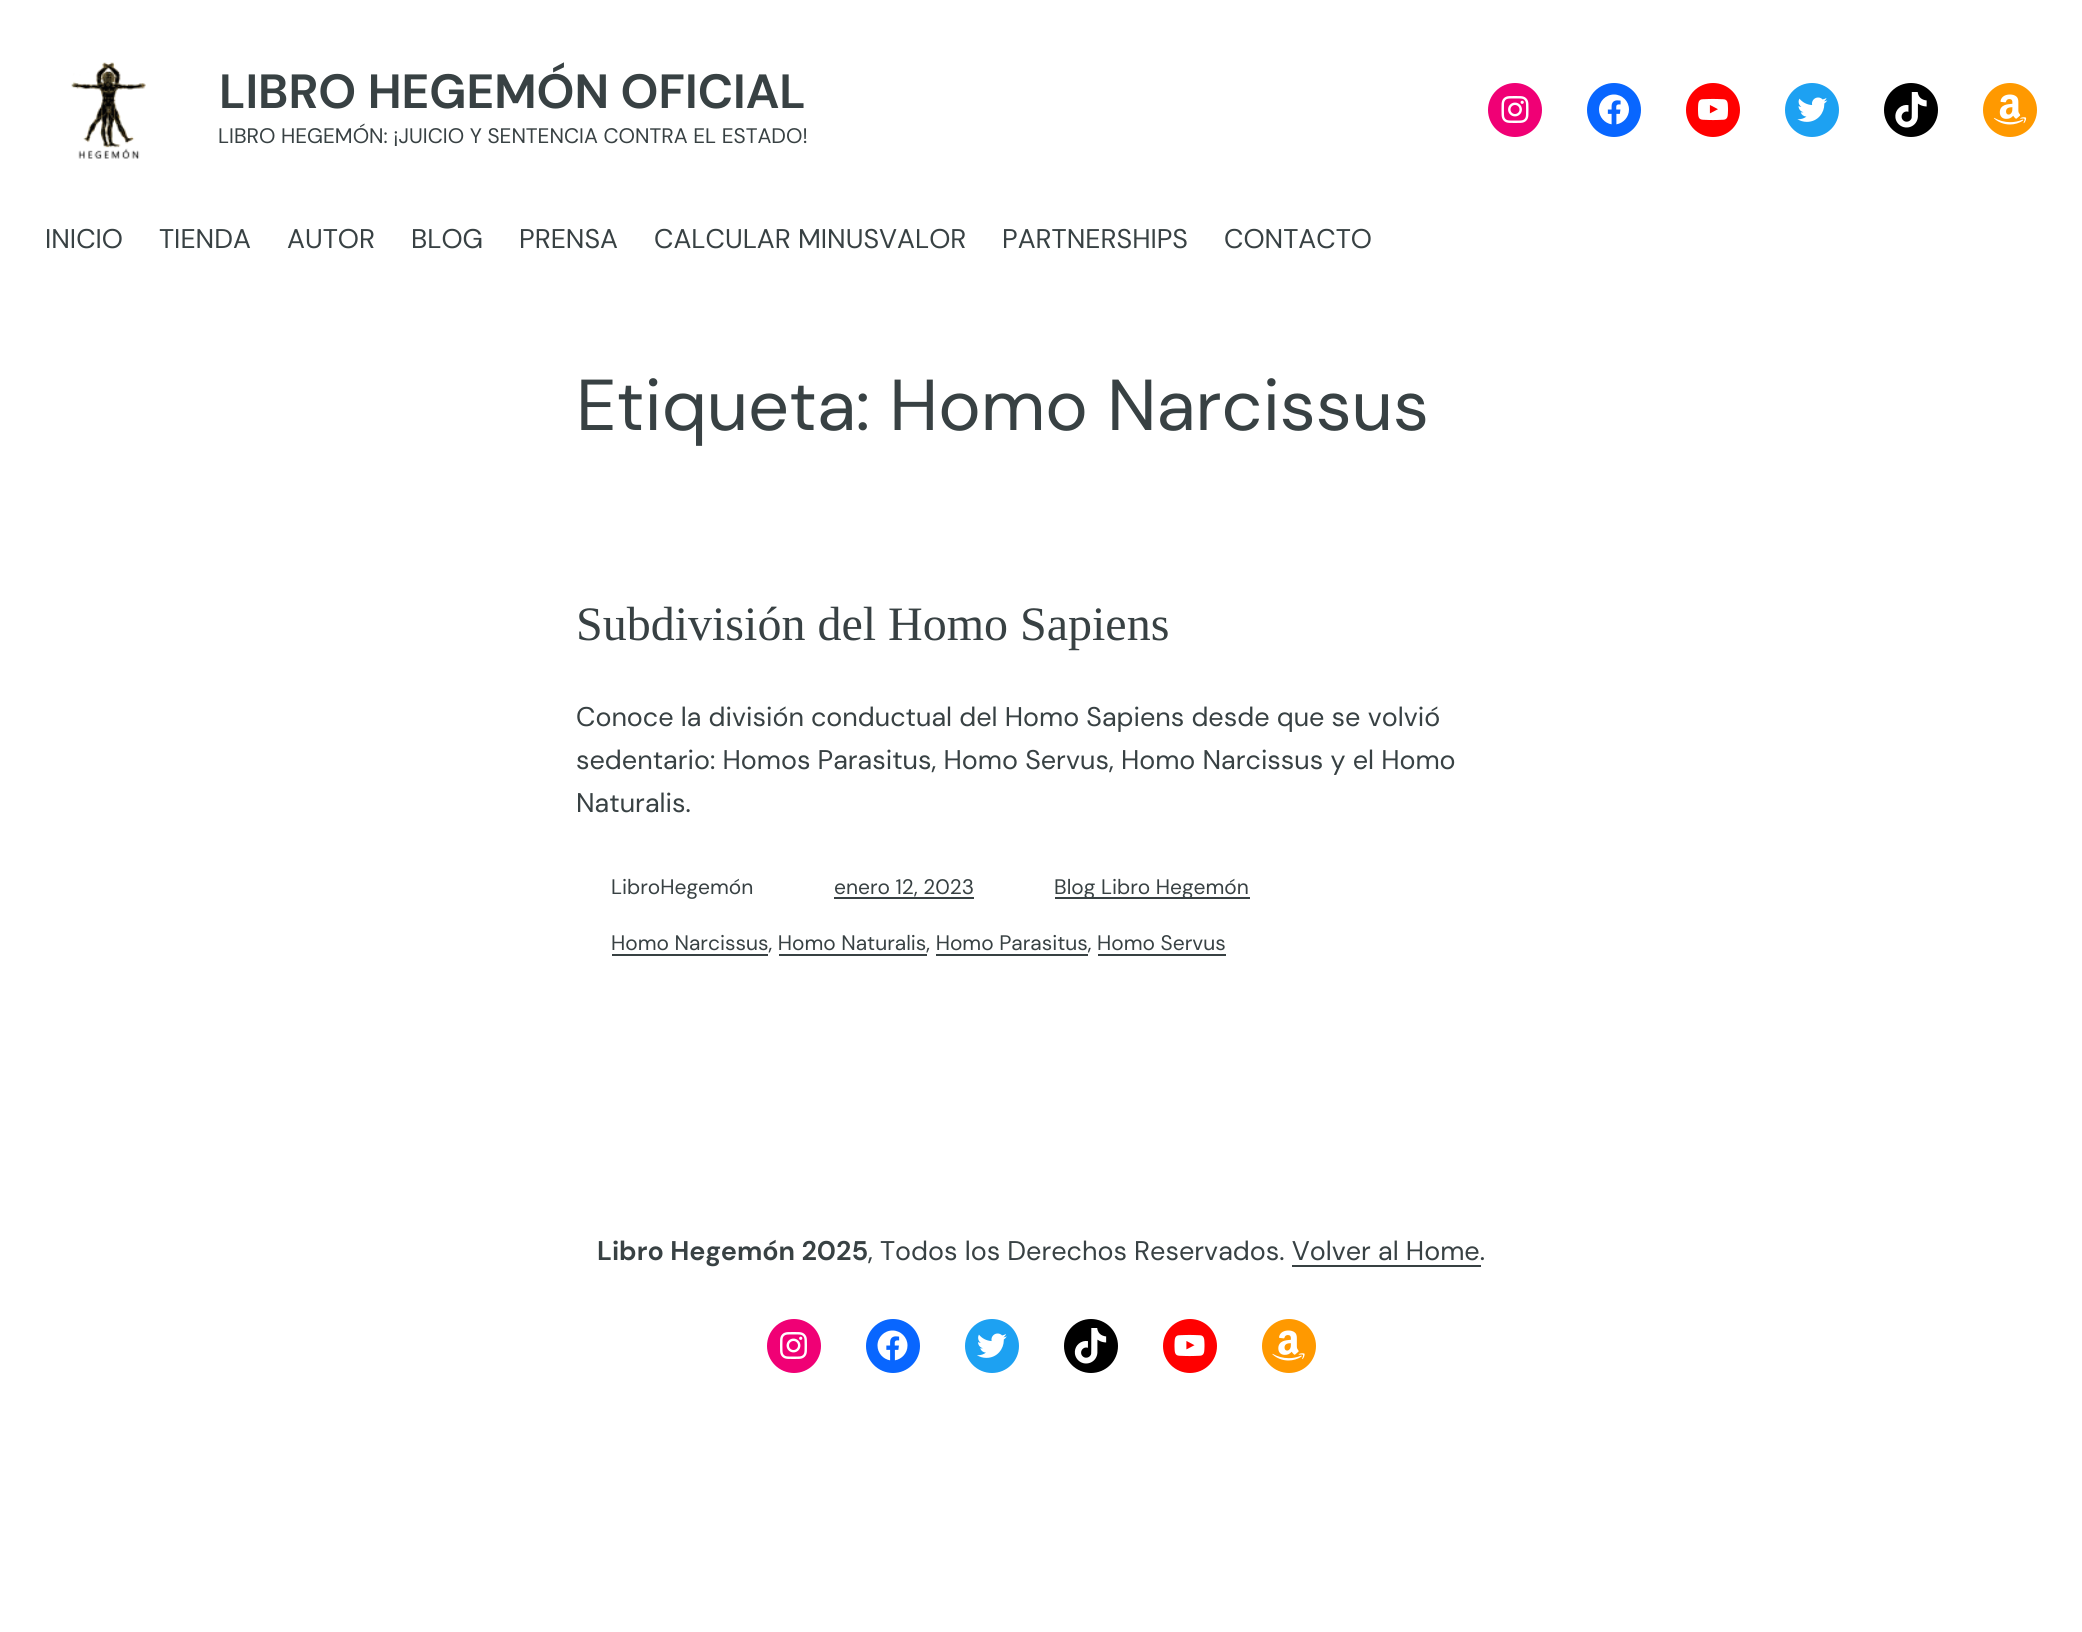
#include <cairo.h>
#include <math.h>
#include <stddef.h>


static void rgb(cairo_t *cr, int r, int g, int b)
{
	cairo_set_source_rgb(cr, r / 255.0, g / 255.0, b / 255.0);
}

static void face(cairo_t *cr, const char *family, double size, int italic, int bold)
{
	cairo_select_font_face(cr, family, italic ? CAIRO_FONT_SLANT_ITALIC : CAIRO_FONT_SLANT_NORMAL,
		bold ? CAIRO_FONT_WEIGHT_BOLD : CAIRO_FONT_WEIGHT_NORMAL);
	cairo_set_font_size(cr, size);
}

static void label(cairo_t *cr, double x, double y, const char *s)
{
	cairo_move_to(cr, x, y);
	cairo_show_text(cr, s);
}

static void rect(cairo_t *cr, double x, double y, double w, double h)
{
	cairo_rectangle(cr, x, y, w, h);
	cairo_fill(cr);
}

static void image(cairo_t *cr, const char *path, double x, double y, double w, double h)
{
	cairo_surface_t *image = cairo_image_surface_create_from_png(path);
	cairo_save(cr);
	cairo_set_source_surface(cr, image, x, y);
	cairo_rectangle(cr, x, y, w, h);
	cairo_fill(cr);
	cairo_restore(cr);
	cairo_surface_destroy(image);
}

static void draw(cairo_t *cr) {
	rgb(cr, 255, 255, 255);
	cairo_paint(cr);
	image(cr, "image0.png", 71, 62, 75, 97);
	face(cr, "DM Sans", 48, 0, 1);
	rgb(cr, 56, 65, 67);
	label(cr, 219, 108, "LIBRO HEGEMÓN OFICIAL");
	face(cr, "DM Sans", 21, 0, 0);
	label(cr, 218, 143, "LIBRO HEGEMÓN: ¡JUICIO Y SENTENCIA CONTRA EL ESTADO!");
	rgb(cr, 240, 0, 117);
	cairo_new_path(cr);
	cairo_arc(cr, 1515, 110, 27, 0, 2 * M_PI);
	cairo_fill(cr);
	image(cr, "image1.png", 1501, 96, 28, 27);
	rgb(cr, 8, 102, 255);
	cairo_arc(cr, 1614, 110, 27, 0, 2 * M_PI);
	cairo_fill(cr);
	image(cr, "image2.png", 1599, 94, 30, 31);
	rgb(cr, 255, 0, 0);
	cairo_arc(cr, 1713, 110, 27, 0, 2 * M_PI);
	cairo_fill(cr);
	image(cr, "image3.png", 1698, 98, 30, 23);
	rgb(cr, 29, 161, 242);
	cairo_arc(cr, 1812, 110, 27, 0, 2 * M_PI);
	cairo_fill(cr);
	image(cr, "image4.png", 1797, 97, 31, 25);
	rgb(cr, 0, 0, 0);
	cairo_arc(cr, 1911, 110, 27, 0, 2 * M_PI);
	cairo_fill(cr);
	image(cr, "image5.png", 1895, 92, 32, 36);
	rgb(cr, 255, 153, 0);
	cairo_arc(cr, 2010, 110, 27, 0, 2 * M_PI);
	cairo_fill(cr);
	image(cr, "image6.png", 1993, 94, 34, 31);
	face(cr, "DM Sans", 27, 0, 0);
	rgb(cr, 56, 65, 67);
	label(cr, 45, 248, "INICIO");
	label(cr, 159, 248, "TIENDA");
	label(cr, 287, 248, "AUTOR");
	label(cr, 411, 248, "BLOG");
	label(cr, 519, 248, "PRENSA");
	label(cr, 654, 248, "CALCULAR MINUSVALOR");
	label(cr, 1002, 248, "PARTNERSHIPS");
	label(cr, 1224, 248, "CONTACTO");
	face(cr, "DM Sans", 72, 0, 0);
	label(cr, 576, 430, "Etiqueta: Homo Narcissus");
	face(cr, "Liberation Serif", 48, 0, 0);
	label(cr, 576, 640, "Subdivisión del Homo Sapiens");
	face(cr, "DM Sans", 27, 0, 0);
	label(cr, 576, 726, "Conoce la división conductual del Homo Sapiens desde que se volvió");
	label(cr, 576, 769, "sedentario: Homos Parasitus, Homo Servus, Homo Narcissus y el Homo");
	label(cr, 576, 812, "Naturalis.");
	face(cr, "DM Sans", 21, 0, 0);
	label(cr, 611, 894, "LibroHegemón");
	label(cr, 834, 894, "enero 12, 2023");
	rect(cr, 834, 897, 140, 2);
	rect(cr, 1055, 897, 195, 2);
	label(cr, 1054, 894, "Blog Libro Hegemón");
	label(cr, 611, 950, "Homo Narcissus, Homo Naturalis, Homo Parasitus, Homo Servus");
	rect(cr, 612, 954, 156, 2);
	rect(cr, 779, 954, 148, 2);
	rect(cr, 936, 954, 152, 2);
	rect(cr, 1098, 954, 128, 2);
	face(cr, "DM Sans", 27, 0, 1);
	label(cr, 597, 1260, "Libro Hegemón 2025");
	face(cr, "DM Sans", 27, 0, 0);
	label(cr, 868, 1260, ", Todos los Derechos Reservados. Volver al Home.");
	rect(cr, 1292, 1265, 189, 2);
	rgb(cr, 240, 0, 117);
	cairo_new_path(cr);
	cairo_arc(cr, 794, 1346, 27, 0, 2 * M_PI);
	cairo_fill(cr);
	image(cr, "image7.png", 780, 1332, 27, 27);
	rgb(cr, 8, 102, 255);
	cairo_arc(cr, 893, 1346, 27, 0, 2 * M_PI);
	cairo_fill(cr);
	image(cr, "image8.png", 877, 1330, 31, 31);
	rgb(cr, 29, 161, 242);
	cairo_arc(cr, 992, 1346, 27, 0, 2 * M_PI);
	cairo_fill(cr);
	image(cr, "image9.png", 977, 1333, 30, 25);
	rgb(cr, 0, 0, 0);
	cairo_arc(cr, 1091, 1346, 27, 0, 2 * M_PI);
	cairo_fill(cr);
	image(cr, "image10.png", 1074, 1328, 33, 36);
	rgb(cr, 255, 0, 0);
	cairo_arc(cr, 1190, 1346, 27, 0, 2 * M_PI);
	cairo_fill(cr);
	image(cr, "image11.png", 1174, 1334, 31, 23);
	rgb(cr, 255, 153, 0);
	cairo_arc(cr, 1289, 1346, 27, 0, 2 * M_PI);
	cairo_fill(cr);
	image(cr, "image12.png", 1272, 1330, 33, 31);
}

int main(void) {
	cairo_surface_t *surface = cairo_image_surface_create(CAIRO_FORMAT_RGB24, 2082, 1632);
	cairo_t *cr = cairo_create(surface);
	cairo_font_options_t *options = cairo_font_options_create();
	cairo_font_options_set_hint_metrics(options, CAIRO_HINT_METRICS_OFF);
	cairo_font_options_set_hint_style(options, CAIRO_HINT_STYLE_NONE);
	cairo_set_font_options(cr, options);
	cairo_set_miter_limit(cr, 4);
	draw(cr);
	cairo_surface_write_to_png(surface, "render.png");
	cairo_font_options_destroy(options);
	cairo_destroy(cr);
	cairo_surface_destroy(surface);
	return 0;
}
